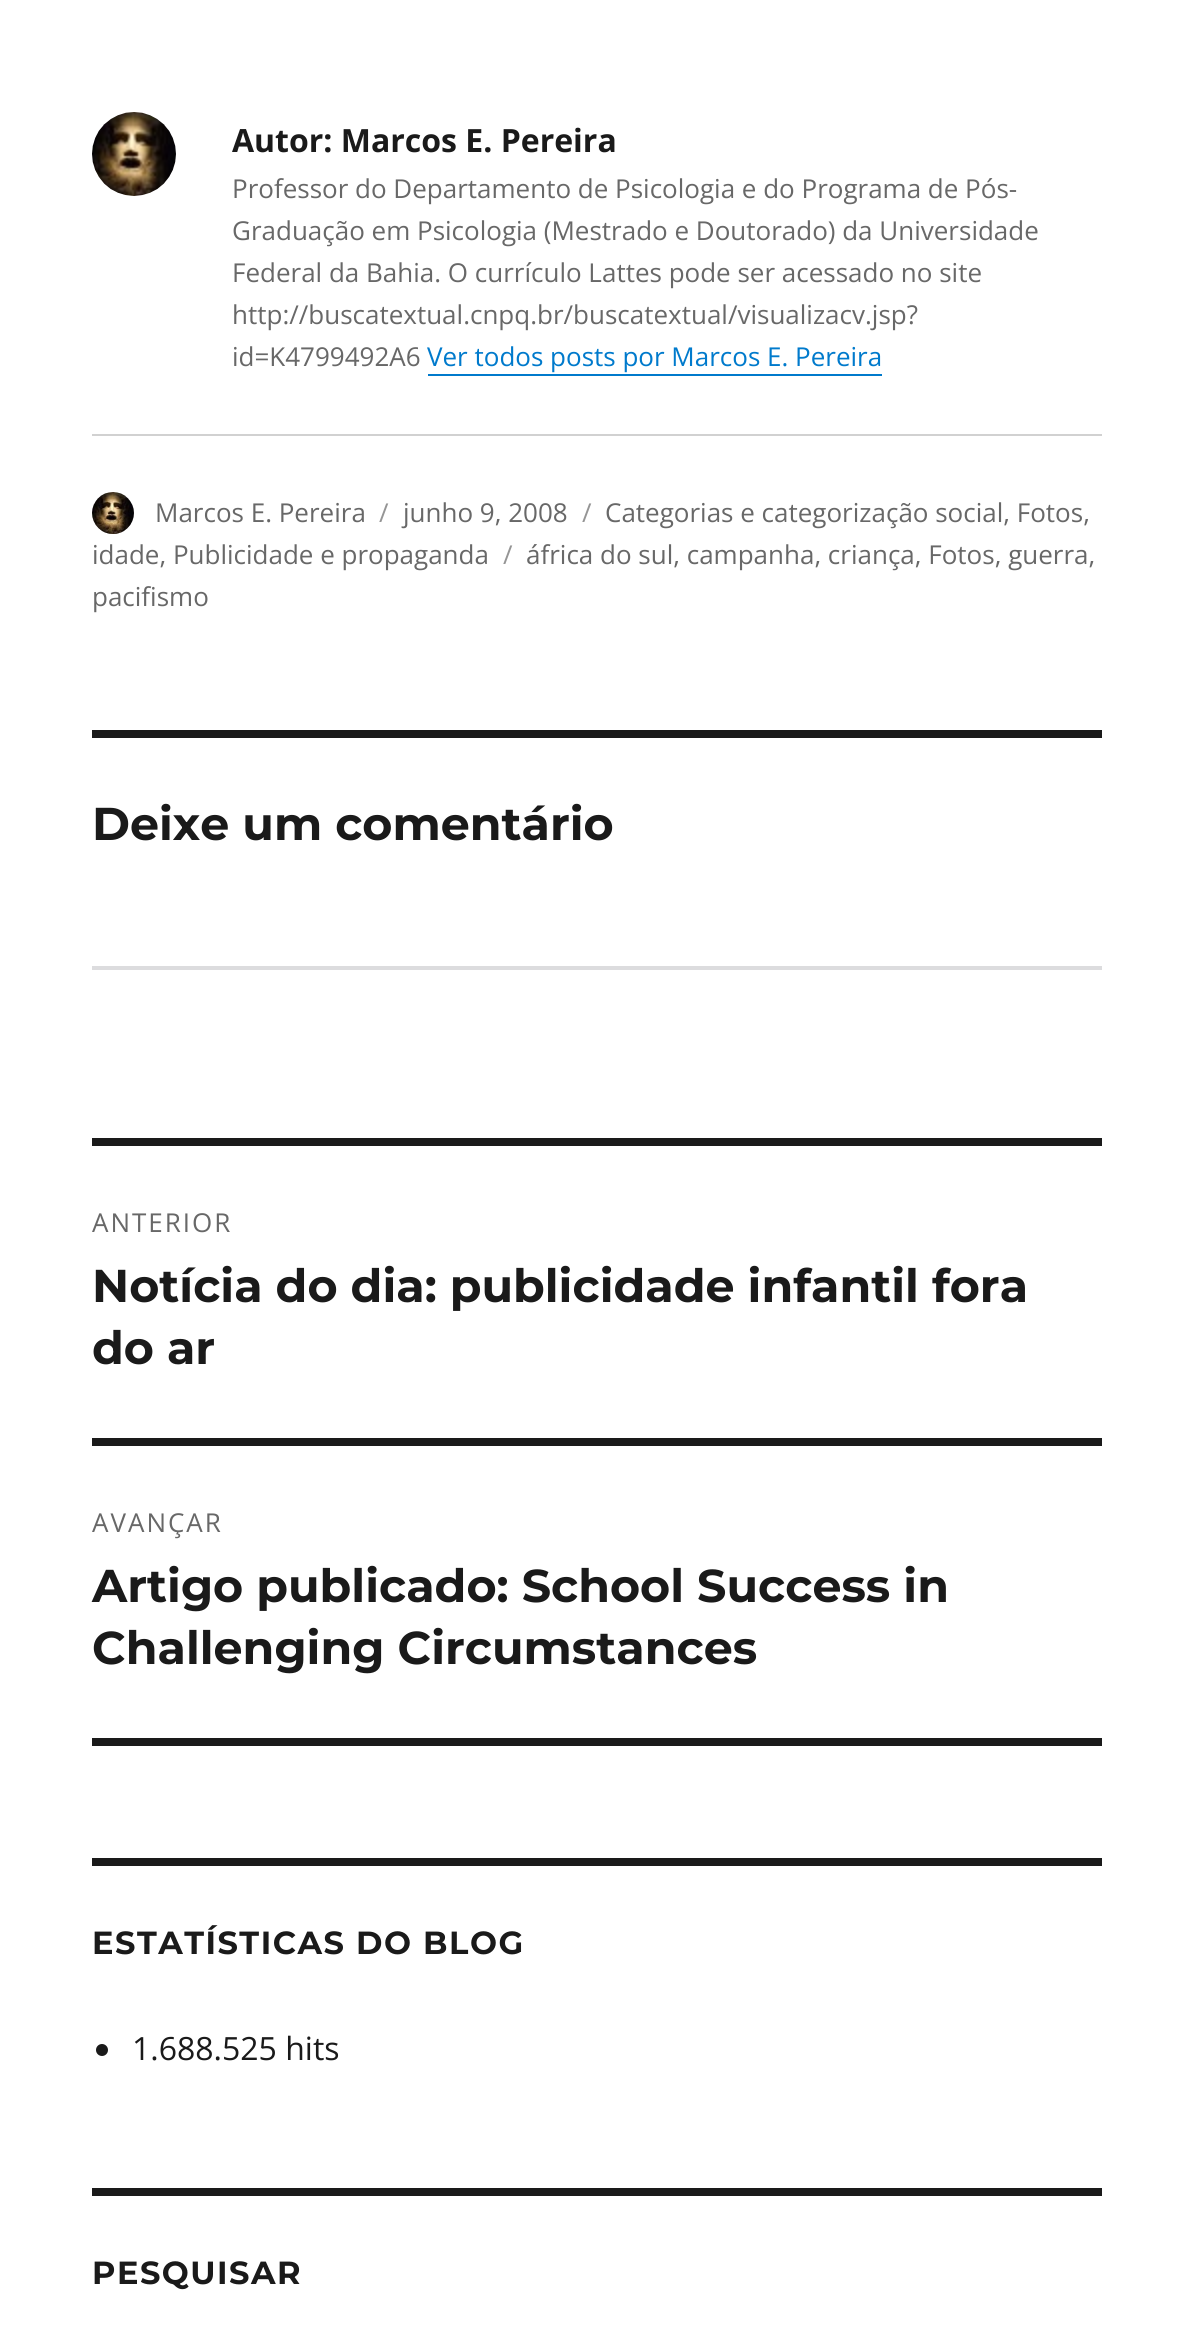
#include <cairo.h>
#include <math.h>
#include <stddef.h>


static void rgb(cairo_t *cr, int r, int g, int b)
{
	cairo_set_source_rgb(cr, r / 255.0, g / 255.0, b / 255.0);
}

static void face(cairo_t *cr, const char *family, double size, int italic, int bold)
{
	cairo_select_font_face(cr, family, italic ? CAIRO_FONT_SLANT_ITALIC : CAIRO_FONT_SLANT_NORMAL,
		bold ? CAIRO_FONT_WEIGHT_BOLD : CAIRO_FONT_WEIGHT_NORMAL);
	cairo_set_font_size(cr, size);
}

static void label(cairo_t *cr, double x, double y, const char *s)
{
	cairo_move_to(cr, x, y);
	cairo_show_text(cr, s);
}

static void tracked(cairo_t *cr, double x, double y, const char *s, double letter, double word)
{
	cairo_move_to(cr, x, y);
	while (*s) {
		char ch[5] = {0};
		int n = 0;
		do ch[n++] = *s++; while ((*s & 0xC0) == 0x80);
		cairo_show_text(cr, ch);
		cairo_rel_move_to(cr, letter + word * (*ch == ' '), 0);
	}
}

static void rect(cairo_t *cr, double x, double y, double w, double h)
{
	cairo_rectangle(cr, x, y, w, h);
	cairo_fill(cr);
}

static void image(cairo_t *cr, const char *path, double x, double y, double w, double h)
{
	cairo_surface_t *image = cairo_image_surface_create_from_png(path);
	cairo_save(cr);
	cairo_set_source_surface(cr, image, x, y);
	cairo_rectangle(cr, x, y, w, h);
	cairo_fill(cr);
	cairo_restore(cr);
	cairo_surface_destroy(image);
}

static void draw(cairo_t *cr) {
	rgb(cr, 255, 255, 255);
	cairo_paint(cr);
	rgb(cr, 209, 209, 209);
	rect(cr, 92, 434, 1010, 2);
	image(cr, "image0.png", 92, 112, 84, 84);
	face(cr, "Open Sans", 32, 0, 1);
	rgb(cr, 26, 26, 26);
	label(cr, 232, 152, "Autor: Marcos E. Pereira");
	face(cr, "Open Sans", 26, 0, 0);
	rgb(cr, 104, 104, 104);
	label(cr, 232, 198, "Professor do Departamento de Psicologia e do Programa de Pós-");
	label(cr, 232, 240, "Graduação em Psicologia (Mestrado e Doutorado) da Universidade");
	label(cr, 232, 282, "Federal da Bahia. O currículo Lattes pode ser acessado no site");
	label(cr, 232, 324, "http://buscatextual.cnpq.br/buscatextual/visualizacv.jsp?");
	label(cr, 232, 366, "id=K4799492A6");
	rgb(cr, 0, 122, 204);
	label(cr, 427, 366, "Ver todos posts por Marcos E. Pereira");
	rect(cr, 428, 374, 454, 2);
	rgb(cr, 104, 104, 104);
	label(cr, 605, 522, "Categorias e categorização social, Fotos,");
	label(cr, 92, 564, "idade, Publicidade e propaganda");
	rgb(cr, 149, 149, 149);
	label(cr, 503, 564, "/");
	image(cr, "image1.png", 92, 492, 42, 42);
	rgb(cr, 104, 104, 104);
	label(cr, 155, 522, "Marcos E. Pereira");
	rgb(cr, 149, 149, 149);
	label(cr, 379, 522, "/");
	rgb(cr, 104, 104, 104);
	label(cr, 403, 522, "junho 9, 2008");
	rgb(cr, 149, 149, 149);
	label(cr, 582, 522, "/");
	rgb(cr, 104, 104, 104);
	label(cr, 526, 564, "áfrica do sul, campanha, criança, Fotos, guerra,");
	label(cr, 92, 606, "pacifismo");
	rgb(cr, 26, 26, 26);
	rect(cr, 92, 730, 1010, 8);
	face(cr, "Montserrat Thin", 46, 0, 0);
	label(cr, 92, 840, "Deixe um comentário");
	rgb(cr, 220, 220, 222);
	rect(cr, 92, 966, 1010, 4);
	rgb(cr, 26, 26, 26);
	rect(cr, 92, 1138, 1010, 8);
	rect(cr, 92, 1738, 1010, 8);
	face(cr, "Open Sans", 26, 0, 0);
	rgb(cr, 104, 104, 104);
	tracked(cr, 92, 1232, "ANTERIOR", 2, 0);
	face(cr, "Montserrat Thin", 46, 0, 0);
	rgb(cr, 26, 26, 26);
	label(cr, 92, 1302, "Notícia do dia: publicidade infantil fora");
	label(cr, 92, 1364, "do ar");
	rect(cr, 92, 1438, 1010, 8);
	face(cr, "Open Sans", 26, 0, 0);
	rgb(cr, 104, 104, 104);
	tracked(cr, 92, 1532, "AVANÇAR", 2, 0);
	face(cr, "Montserrat Thin", 46, 0, 0);
	rgb(cr, 26, 26, 26);
	label(cr, 92, 1602, "Artigo publicado: School Success in");
	label(cr, 92, 1664, "Challenging Circumstances");
	rect(cr, 92, 1858, 1010, 8);
	face(cr, "Montserrat Thin", 32, 0, 0);
	tracked(cr, 92, 1954, "ESTATÍSTICAS DO BLOG", 1.5, 0);
	cairo_new_path(cr);
	cairo_arc(cr, 102, 2050, 6, 0, 2 * M_PI);
	cairo_fill(cr);
	face(cr, "Open Sans", 32, 0, 0);
	label(cr, 132, 2060, "1.688.525 hits");
	rect(cr, 92, 2188, 1010, 8);
	face(cr, "Montserrat Thin", 32, 0, 0);
	tracked(cr, 92, 2284, "PESQUISAR", 1.5, 0);
}

int main(void) {
	cairo_surface_t *surface = cairo_image_surface_create(CAIRO_FORMAT_RGB24, 1194, 2346);
	cairo_t *cr = cairo_create(surface);
	cairo_font_options_t *options = cairo_font_options_create();
	cairo_font_options_set_hint_metrics(options, CAIRO_HINT_METRICS_OFF);
	cairo_font_options_set_hint_style(options, CAIRO_HINT_STYLE_NONE);
	cairo_set_font_options(cr, options);
	cairo_set_miter_limit(cr, 4);
	draw(cr);
	cairo_surface_write_to_png(surface, "render.png");
	cairo_font_options_destroy(options);
	cairo_destroy(cr);
	cairo_surface_destroy(surface);
	return 0;
}
